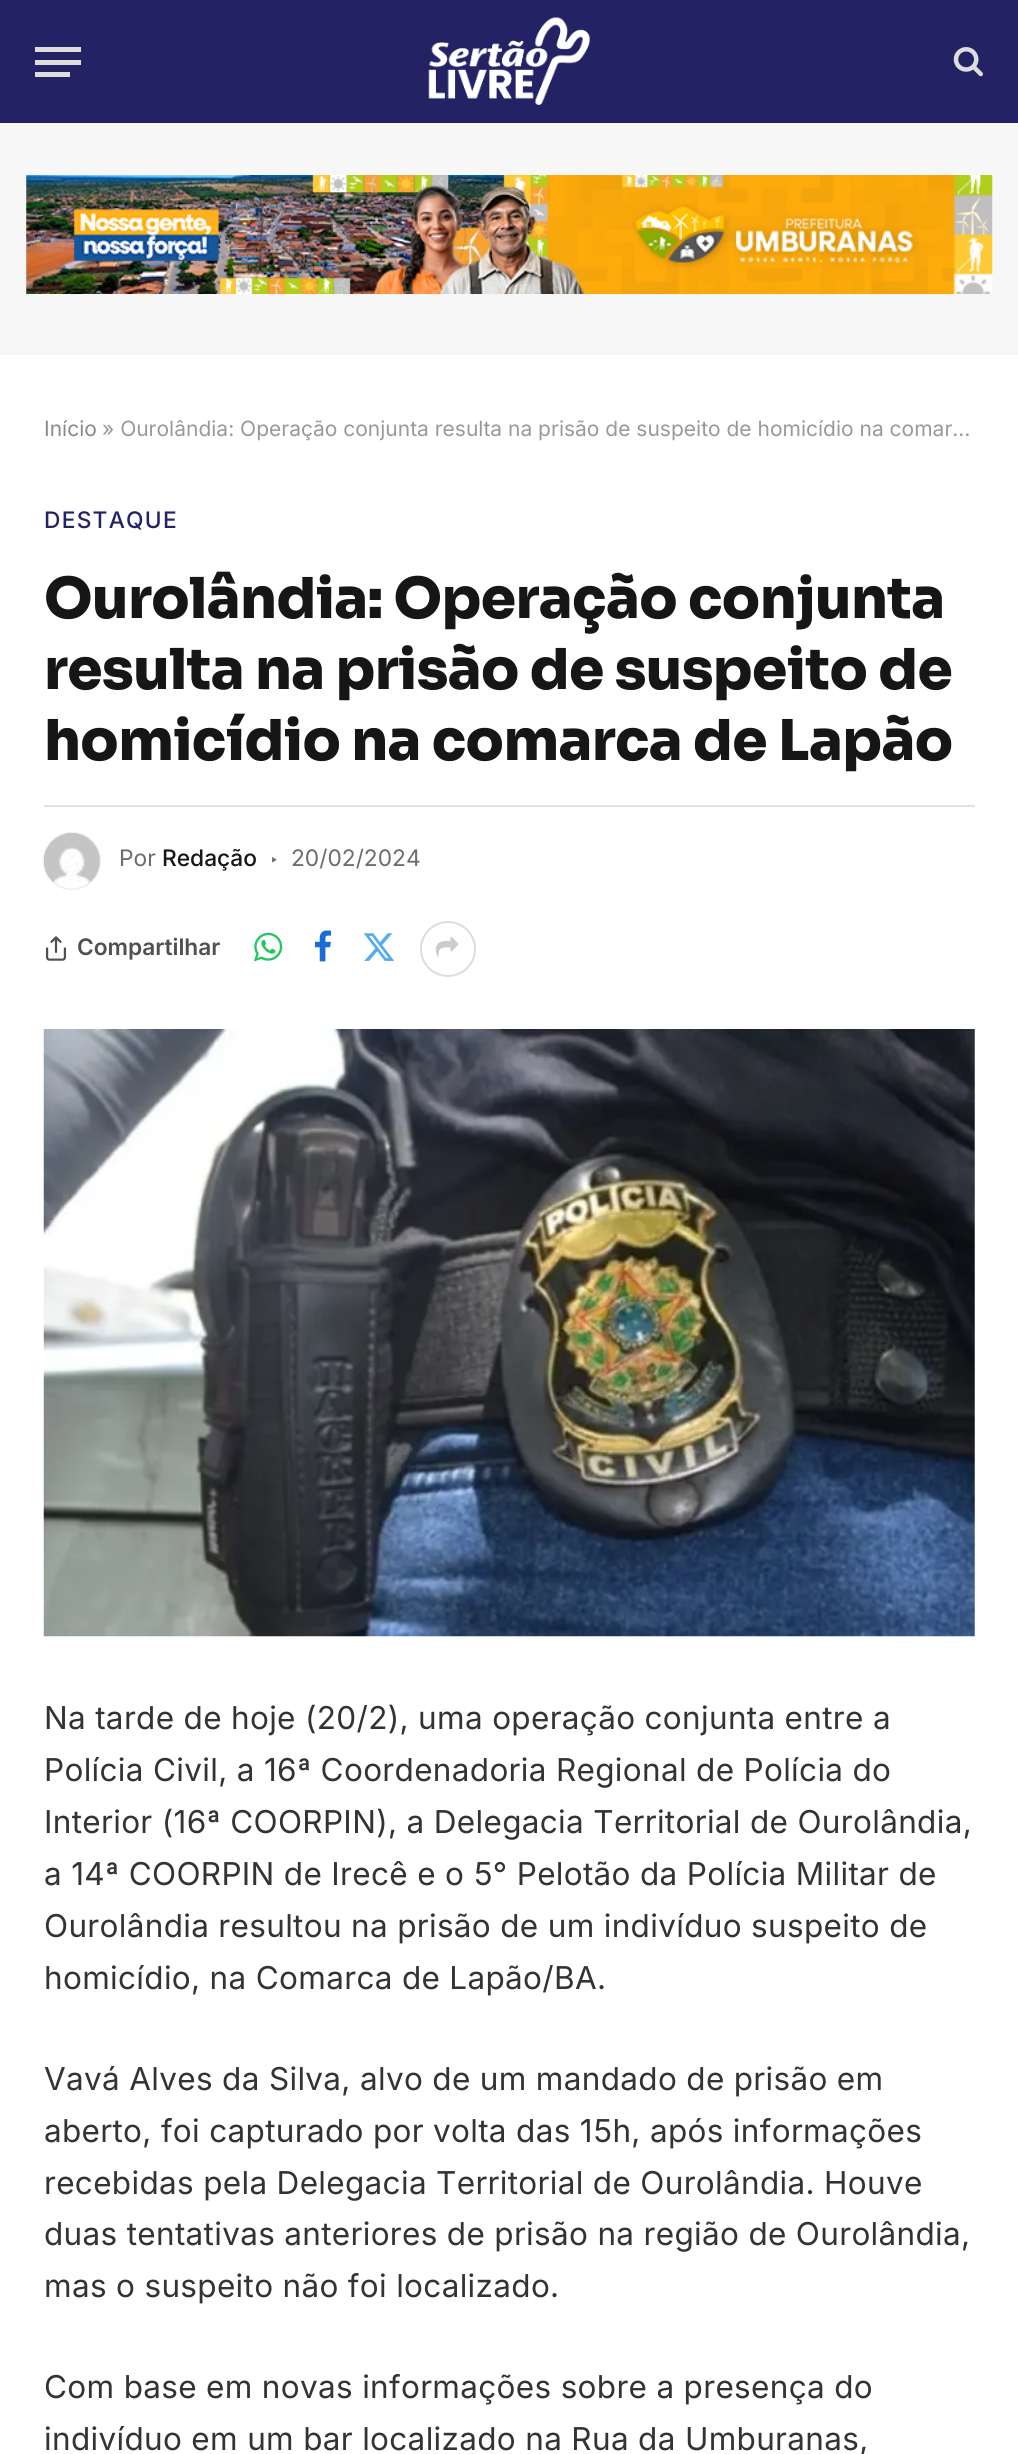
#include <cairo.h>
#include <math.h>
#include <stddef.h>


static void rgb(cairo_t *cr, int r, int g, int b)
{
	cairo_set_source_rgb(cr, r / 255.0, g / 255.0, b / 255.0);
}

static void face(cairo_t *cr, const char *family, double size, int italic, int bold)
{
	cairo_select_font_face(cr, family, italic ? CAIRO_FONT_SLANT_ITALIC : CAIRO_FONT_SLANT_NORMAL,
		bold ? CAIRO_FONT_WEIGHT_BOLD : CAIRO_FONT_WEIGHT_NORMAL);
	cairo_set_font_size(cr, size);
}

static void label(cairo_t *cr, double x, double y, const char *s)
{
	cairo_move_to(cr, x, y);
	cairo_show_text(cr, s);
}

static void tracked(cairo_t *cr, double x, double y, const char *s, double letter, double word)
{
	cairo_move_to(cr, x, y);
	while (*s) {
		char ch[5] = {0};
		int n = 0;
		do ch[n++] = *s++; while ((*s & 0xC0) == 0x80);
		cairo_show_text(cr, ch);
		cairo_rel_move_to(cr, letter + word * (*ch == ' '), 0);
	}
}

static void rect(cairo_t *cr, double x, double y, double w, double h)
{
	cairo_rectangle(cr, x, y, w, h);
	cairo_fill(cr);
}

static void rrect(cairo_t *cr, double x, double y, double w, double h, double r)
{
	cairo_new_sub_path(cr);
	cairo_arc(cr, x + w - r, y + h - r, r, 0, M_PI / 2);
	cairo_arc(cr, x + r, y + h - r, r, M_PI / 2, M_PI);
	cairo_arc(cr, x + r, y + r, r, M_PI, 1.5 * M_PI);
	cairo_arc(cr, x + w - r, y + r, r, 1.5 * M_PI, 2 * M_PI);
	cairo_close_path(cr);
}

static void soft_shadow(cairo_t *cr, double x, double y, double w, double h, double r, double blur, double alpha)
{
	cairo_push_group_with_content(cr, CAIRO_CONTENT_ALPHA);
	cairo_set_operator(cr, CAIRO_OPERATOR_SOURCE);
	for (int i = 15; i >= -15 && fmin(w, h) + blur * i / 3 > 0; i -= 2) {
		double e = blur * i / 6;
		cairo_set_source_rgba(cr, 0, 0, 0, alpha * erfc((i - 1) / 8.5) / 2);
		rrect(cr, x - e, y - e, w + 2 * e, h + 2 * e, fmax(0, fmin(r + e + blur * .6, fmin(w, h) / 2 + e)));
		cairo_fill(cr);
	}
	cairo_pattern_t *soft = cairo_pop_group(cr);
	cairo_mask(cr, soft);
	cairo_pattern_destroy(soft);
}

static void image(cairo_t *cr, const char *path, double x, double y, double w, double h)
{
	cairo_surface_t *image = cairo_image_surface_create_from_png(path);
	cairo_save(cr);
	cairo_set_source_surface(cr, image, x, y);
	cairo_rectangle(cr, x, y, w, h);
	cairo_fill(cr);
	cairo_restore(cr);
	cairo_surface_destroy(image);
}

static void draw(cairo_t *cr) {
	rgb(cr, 255, 255, 255);
	cairo_paint(cr);
	rgb(cr, 35, 34, 100);
	rect(cr, 0, 0, 1018, 123);
	rgb(cr, 221, 221, 221);
	rect(cr, 35, 72, 35, 5);
	rect(cr, 35, 47, 46, 5);
	rect(cr, 35, 60, 46, 5);
	image(cr, "image0.png", 428, 17, 162, 88);
	image(cr, "image1.png", 953, 47, 30, 30);
	rgb(cr, 247, 247, 247);
	rect(cr, 0, 123, 1018, 232);
	image(cr, "image2.png", 26, 175, 967, 119);
	face(cr, "Inter", 21, 0, 0);
	rgb(cr, 138, 138, 138);
	label(cr, 44, 436, "Início");
	rgb(cr, 153, 153, 153);
	label(cr, 102, 436, "» Ourolândia: Operação conjunta resulta na prisão de suspeito de homicídio na comar…");
	face(cr, "Inter Medium", 22.75, 0, 0);
	rgb(cr, 35, 34, 100);
	tracked(cr, 44, 528, "DESTAQUE", 1.25, 0);
	face(cr, "Sora ExtraBold", 56.25, 0, 0);
	rgb(cr, 22, 22, 22);
	tracked(cr, 44, 618, "Ourolândia: Operação conjunta", -0.55, 0);
	tracked(cr, 44, 689, "resulta na prisão de suspeito de", -0.55, 0);
	tracked(cr, 44, 760, "homicídio na comarca de Lapão", -0.55, 0);
	rgb(cr, 226, 226, 226);
	rect(cr, 44, 805, 931, 2);
	rgb(cr, 0, 0, 0);
	soft_shadow(cr, 44, 833, 56, 56, 28, 1, 0.2);
	image(cr, "image3.png", 44, 833, 56, 56);
	face(cr, "Inter", 22.75, 0, 0);
	rgb(cr, 109, 109, 109);
	label(cr, 119, 866, "Por");
	face(cr, "Inter Medium", 22.75, 0, 0);
	rgb(cr, 22, 22, 22);
	label(cr, 162, 866, "Redação");
	face(cr, "Inter", 18, 0, 0);
	rgb(cr, 109, 109, 109);
	label(cr, 269, 865, "‣");
	face(cr, "Inter", 22.75, 0, 0);
	label(cr, 291, 866, "20/02/2024");
	image(cr, "image4.png", 45, 936, 22, 25);
	face(cr, "Inter SemiBold", 22.75, 0, 0);
	rgb(cr, 80, 80, 80);
	label(cr, 77, 955, "Compartilhar");
	image(cr, "image5.png", 253, 932, 30, 30);
	image(cr, "image6.png", 315, 930, 17, 32);
	image(cr, "image7.png", 363, 933, 32, 28);
	cairo_arc(cr, 448, 949, 27, 0, 2 * M_PI);
	rgb(cr, 221, 221, 221);
	cairo_stroke(cr);
	image(cr, "image8.png", 435, 936, 24, 21);
	image(cr, "image9.png", 43, 1029, 932, 608);
	face(cr, "Inter", 31.5, 0, 0);
	rgb(cr, 51, 51, 51);
	tracked(cr, 44, 1729, "Na tarde de hoje (20/2), uma operação conjunta entre a", 0.32, 0);
	tracked(cr, 44, 1781, "Polícia Civil, a 16ª Coordenadoria Regional de Polícia do", 0.32, 0);
	tracked(cr, 44, 1833, "Interior (16ª COORPIN), a Delegacia Territorial de Ourolândia,", 0.32, 0);
	tracked(cr, 44, 1885, "a 14ª COORPIN de Irecê e o 5° Pelotão da Polícia Militar de", 0.32, 0);
	tracked(cr, 44, 1937, "Ourolândia resultou na prisão de um indivíduo suspeito de", 0.32, 0);
	tracked(cr, 44, 1989, "homicídio, na Comarca de Lapão/BA.", 0.32, 0);
	tracked(cr, 44, 2090, "Vavá Alves da Silva, alvo de um mandado de prisão em", 0.32, 0);
	tracked(cr, 44, 2142, "aberto, foi capturado por volta das 15h, após informações", 0.32, 0);
	tracked(cr, 44, 2194, "recebidas pela Delegacia Territorial de Ourolândia. Houve", 0.32, 0);
	tracked(cr, 44, 2245, "duas tentativas anteriores de prisão na região de Ourolândia,", 0.32, 0);
	tracked(cr, 44, 2297, "mas o suspeito não foi localizado.", 0.32, 0);
	tracked(cr, 44, 2398, "Com base em novas informações sobre a presença do", 0.32, 0);
	tracked(cr, 44, 2450, "indivíduo em um bar localizado na Rua da Umburanas,", 0.32, 0);
}

int main(void) {
	cairo_surface_t *surface = cairo_image_surface_create(CAIRO_FORMAT_RGB24, 1018, 2454);
	cairo_t *cr = cairo_create(surface);
	cairo_font_options_t *options = cairo_font_options_create();
	cairo_font_options_set_hint_metrics(options, CAIRO_HINT_METRICS_OFF);
	cairo_font_options_set_hint_style(options, CAIRO_HINT_STYLE_NONE);
	cairo_set_font_options(cr, options);
	cairo_set_miter_limit(cr, 4);
	draw(cr);
	cairo_surface_write_to_png(surface, "render.png");
	cairo_font_options_destroy(options);
	cairo_destroy(cr);
	cairo_surface_destroy(surface);
	return 0;
}
